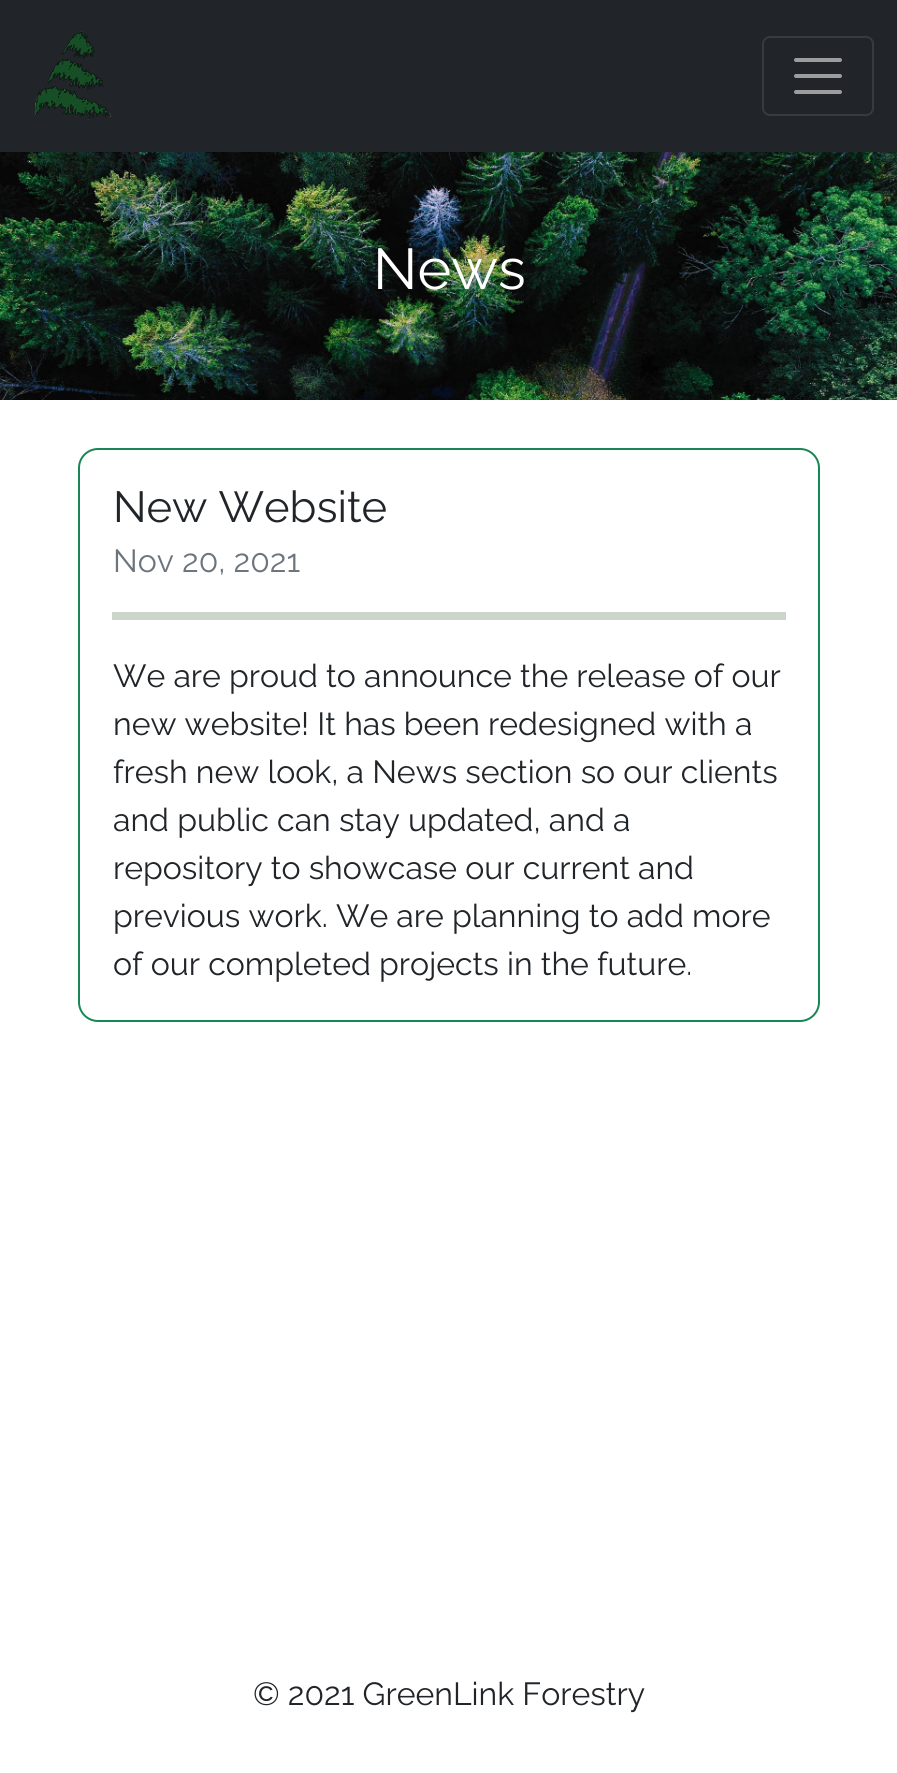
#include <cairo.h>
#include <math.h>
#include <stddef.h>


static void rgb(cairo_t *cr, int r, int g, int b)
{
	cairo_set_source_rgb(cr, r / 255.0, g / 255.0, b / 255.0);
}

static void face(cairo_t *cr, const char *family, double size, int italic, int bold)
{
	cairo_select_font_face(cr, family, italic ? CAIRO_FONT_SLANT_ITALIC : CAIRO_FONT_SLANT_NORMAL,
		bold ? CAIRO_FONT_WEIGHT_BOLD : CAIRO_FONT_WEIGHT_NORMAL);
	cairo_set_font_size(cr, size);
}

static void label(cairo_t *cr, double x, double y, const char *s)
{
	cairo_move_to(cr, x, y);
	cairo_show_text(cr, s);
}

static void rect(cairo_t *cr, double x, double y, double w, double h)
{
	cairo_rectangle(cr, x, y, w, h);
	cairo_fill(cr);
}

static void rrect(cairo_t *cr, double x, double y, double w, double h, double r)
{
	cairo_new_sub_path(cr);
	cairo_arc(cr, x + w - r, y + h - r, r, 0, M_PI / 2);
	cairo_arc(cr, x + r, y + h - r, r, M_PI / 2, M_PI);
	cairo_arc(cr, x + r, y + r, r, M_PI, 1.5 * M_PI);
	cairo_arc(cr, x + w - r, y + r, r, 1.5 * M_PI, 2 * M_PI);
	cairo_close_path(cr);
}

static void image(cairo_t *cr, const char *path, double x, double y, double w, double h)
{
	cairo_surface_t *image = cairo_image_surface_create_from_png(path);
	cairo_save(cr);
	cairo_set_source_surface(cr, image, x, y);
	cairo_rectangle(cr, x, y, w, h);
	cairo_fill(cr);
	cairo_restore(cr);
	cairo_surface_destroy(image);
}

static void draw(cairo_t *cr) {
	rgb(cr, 255, 255, 255);
	cairo_paint(cr);
	rgb(cr, 33, 37, 41);
	rect(cr, 0, 0, 897, 152);
	image(cr, "image0.png", 34, 31, 77, 89);
	rrect(cr, 763, 37, 110, 78, 7);
	rgb(cr, 55, 59, 62);
	cairo_stroke(cr);
	cairo_new_path(cr);
	cairo_move_to(cr, 796, 60);
	cairo_line_to(cr, 840, 60);
	cairo_move_to(cr, 796, 76);
	cairo_line_to(cr, 840, 76);
	cairo_move_to(cr, 796, 92);
	cairo_line_to(cr, 840, 92);
	rgb(cr, 155, 157, 159);
	cairo_set_line_width(cr, 4);
	cairo_set_line_cap(cr, CAIRO_LINE_CAP_ROUND);
	cairo_stroke(cr);
	image(cr, "image1.png", 0, 152, 897, 248);
	face(cr, "Raleway Thin", 57.5, 0, 0);
	rgb(cr, 255, 255, 255);
	label(cr, 373, 289, "News");
	rrect(cr, 79, 449, 740, 572, 19);
	rgb(cr, 25, 135, 84);
	cairo_set_line_width(cr, 2);
	cairo_set_line_cap(cr, CAIRO_LINE_CAP_BUTT);
	cairo_stroke(cr);
	face(cr, "Raleway Thin", 43.5, 0, 0);
	rgb(cr, 33, 37, 41);
	label(cr, 113, 522, "New Website");
	face(cr, "Raleway Thin", 32, 0, 0);
	rgb(cr, 108, 117, 125);
	label(cr, 113, 572, "Nov 20, 2021");
	rgb(cr, 202, 214, 202);
	rect(cr, 112, 612, 674, 8);
	rgb(cr, 33, 37, 41);
	label(cr, 113, 687, "We are proud to announce the release of our");
	label(cr, 113, 735, "new website! It has been redesigned with a");
	label(cr, 113, 783, "fresh new look, a News section so our clients");
	label(cr, 113, 831, "and public can stay updated, and a");
	label(cr, 113, 879, "repository to showcase our current and");
	label(cr, 113, 927, "previous work. We are planning to add more");
	label(cr, 113, 975, "of our completed projects in the future.");
	label(cr, 253, 1705, "© 2021 GreenLink Forestry");
}

int main(void) {
	cairo_surface_t *surface = cairo_image_surface_create(CAIRO_FORMAT_RGB24, 897, 1773);
	cairo_t *cr = cairo_create(surface);
	cairo_font_options_t *options = cairo_font_options_create();
	cairo_font_options_set_hint_metrics(options, CAIRO_HINT_METRICS_OFF);
	cairo_font_options_set_hint_style(options, CAIRO_HINT_STYLE_NONE);
	cairo_set_font_options(cr, options);
	cairo_set_miter_limit(cr, 4);
	draw(cr);
	cairo_surface_write_to_png(surface, "render.png");
	cairo_font_options_destroy(options);
	cairo_destroy(cr);
	cairo_surface_destroy(surface);
	return 0;
}
